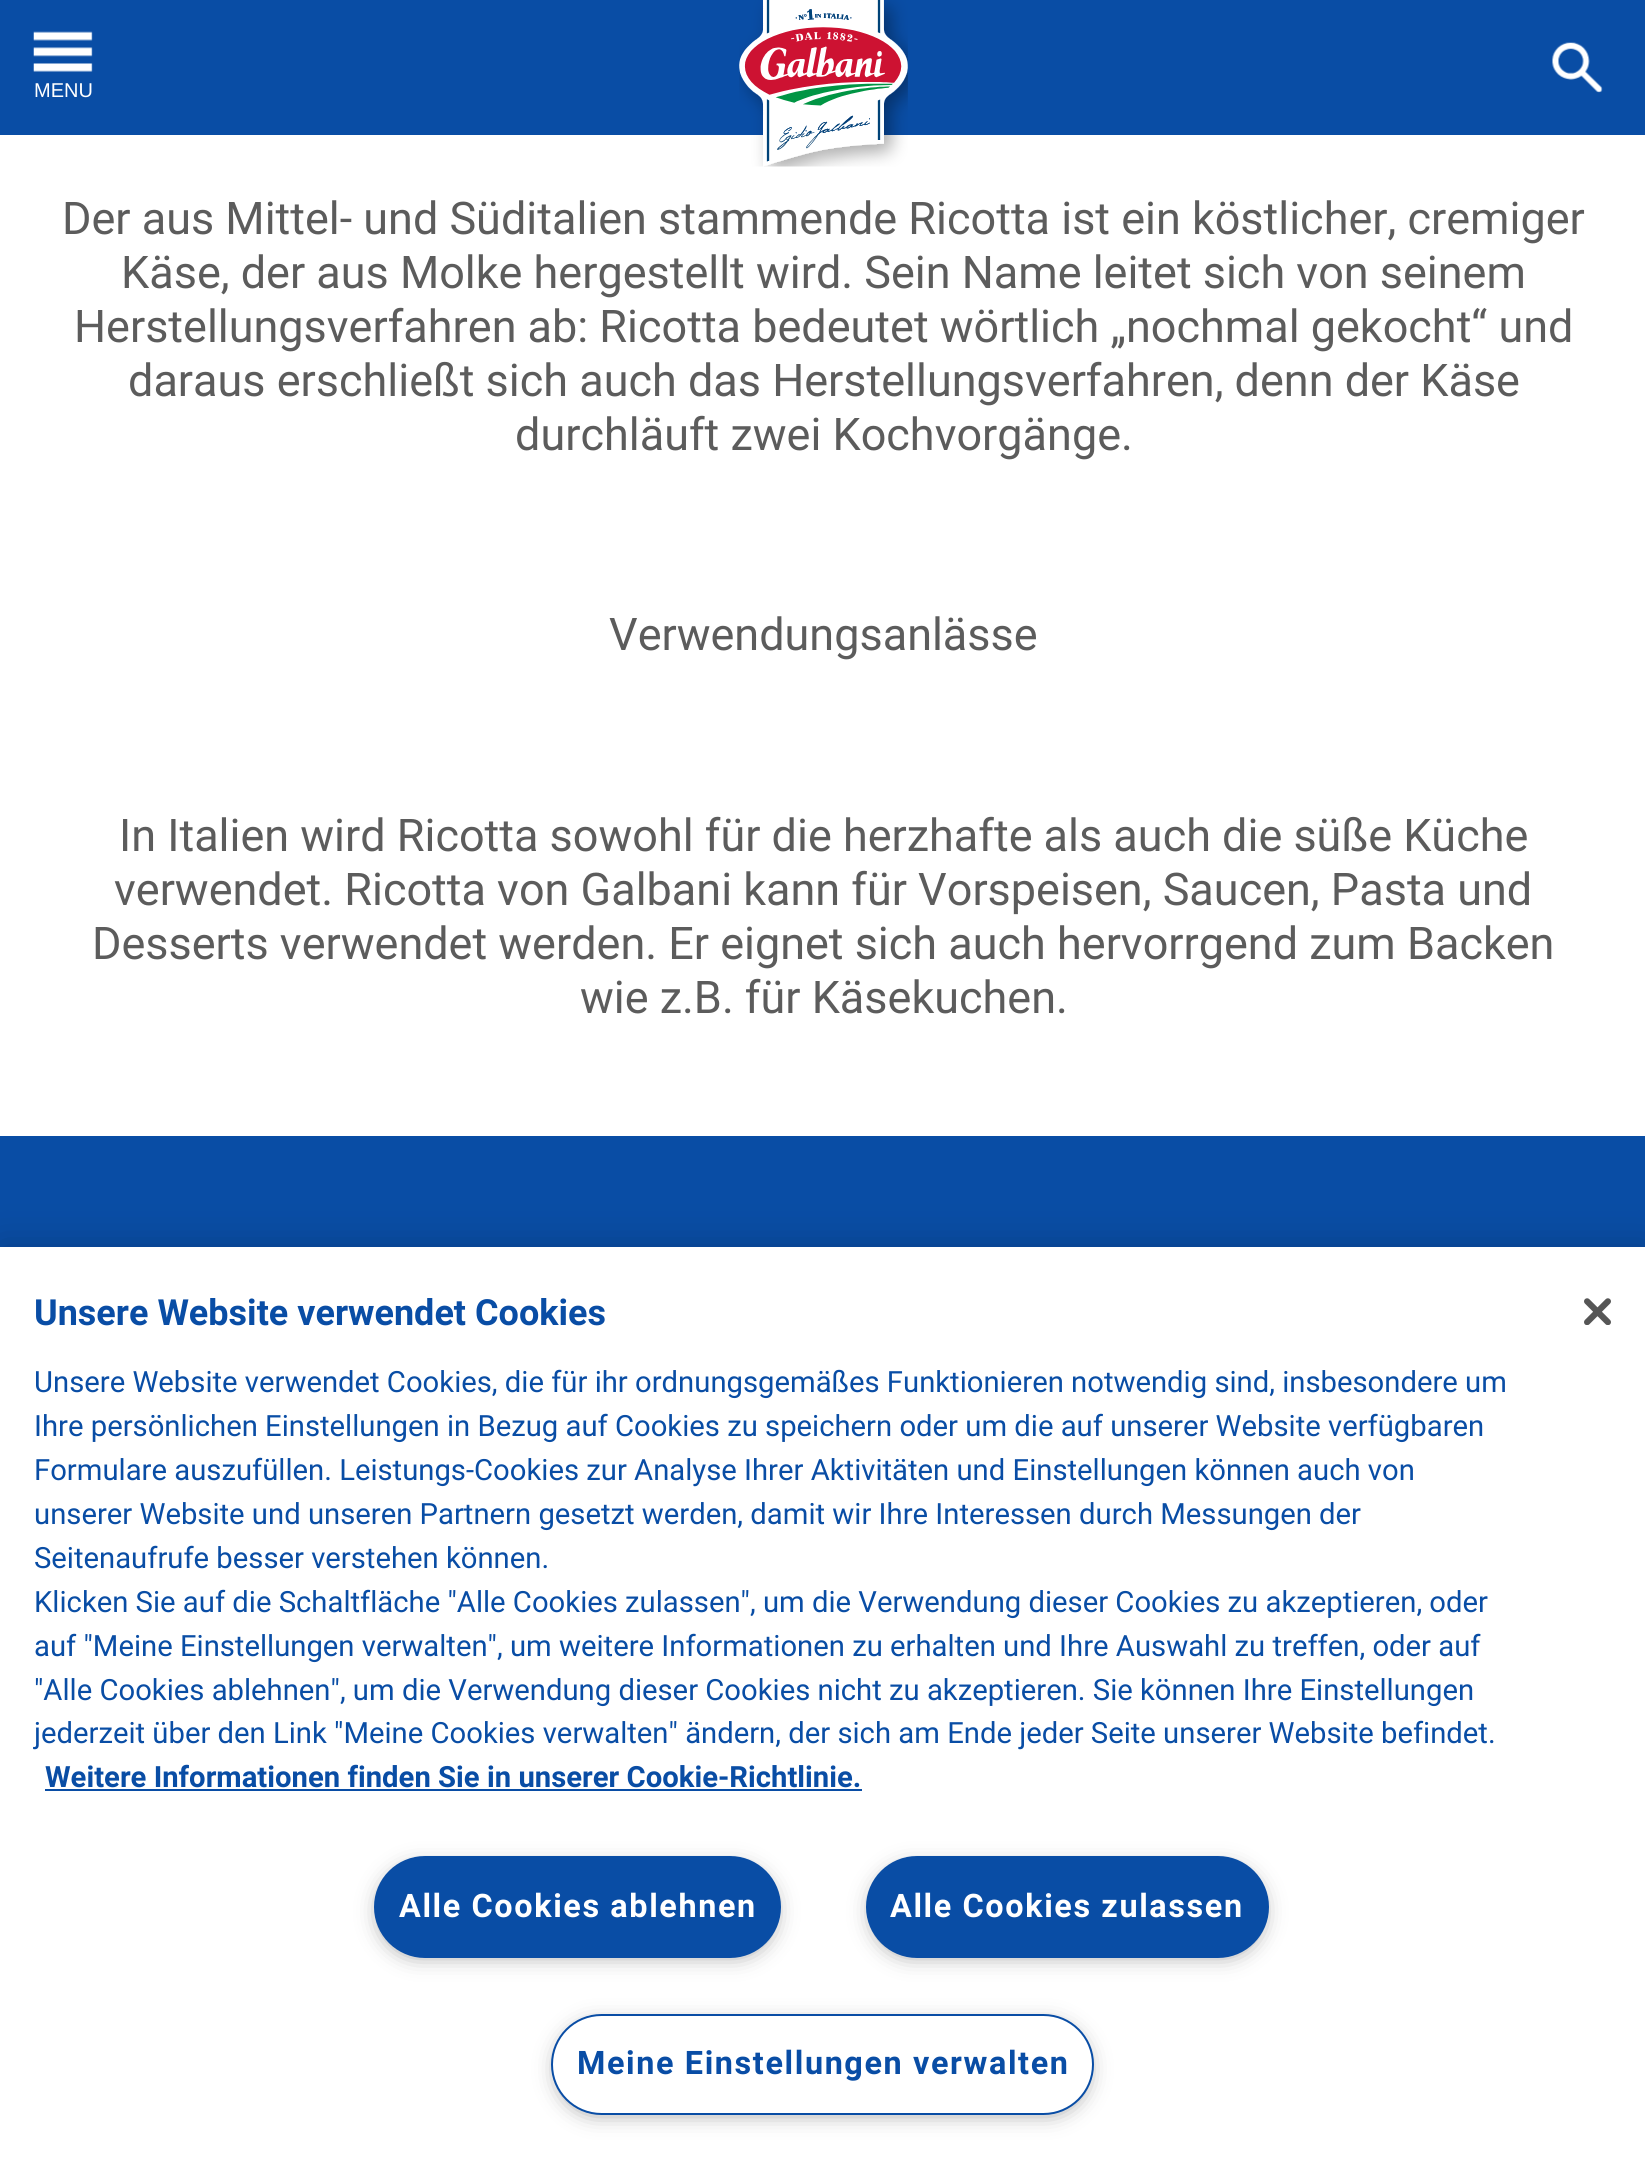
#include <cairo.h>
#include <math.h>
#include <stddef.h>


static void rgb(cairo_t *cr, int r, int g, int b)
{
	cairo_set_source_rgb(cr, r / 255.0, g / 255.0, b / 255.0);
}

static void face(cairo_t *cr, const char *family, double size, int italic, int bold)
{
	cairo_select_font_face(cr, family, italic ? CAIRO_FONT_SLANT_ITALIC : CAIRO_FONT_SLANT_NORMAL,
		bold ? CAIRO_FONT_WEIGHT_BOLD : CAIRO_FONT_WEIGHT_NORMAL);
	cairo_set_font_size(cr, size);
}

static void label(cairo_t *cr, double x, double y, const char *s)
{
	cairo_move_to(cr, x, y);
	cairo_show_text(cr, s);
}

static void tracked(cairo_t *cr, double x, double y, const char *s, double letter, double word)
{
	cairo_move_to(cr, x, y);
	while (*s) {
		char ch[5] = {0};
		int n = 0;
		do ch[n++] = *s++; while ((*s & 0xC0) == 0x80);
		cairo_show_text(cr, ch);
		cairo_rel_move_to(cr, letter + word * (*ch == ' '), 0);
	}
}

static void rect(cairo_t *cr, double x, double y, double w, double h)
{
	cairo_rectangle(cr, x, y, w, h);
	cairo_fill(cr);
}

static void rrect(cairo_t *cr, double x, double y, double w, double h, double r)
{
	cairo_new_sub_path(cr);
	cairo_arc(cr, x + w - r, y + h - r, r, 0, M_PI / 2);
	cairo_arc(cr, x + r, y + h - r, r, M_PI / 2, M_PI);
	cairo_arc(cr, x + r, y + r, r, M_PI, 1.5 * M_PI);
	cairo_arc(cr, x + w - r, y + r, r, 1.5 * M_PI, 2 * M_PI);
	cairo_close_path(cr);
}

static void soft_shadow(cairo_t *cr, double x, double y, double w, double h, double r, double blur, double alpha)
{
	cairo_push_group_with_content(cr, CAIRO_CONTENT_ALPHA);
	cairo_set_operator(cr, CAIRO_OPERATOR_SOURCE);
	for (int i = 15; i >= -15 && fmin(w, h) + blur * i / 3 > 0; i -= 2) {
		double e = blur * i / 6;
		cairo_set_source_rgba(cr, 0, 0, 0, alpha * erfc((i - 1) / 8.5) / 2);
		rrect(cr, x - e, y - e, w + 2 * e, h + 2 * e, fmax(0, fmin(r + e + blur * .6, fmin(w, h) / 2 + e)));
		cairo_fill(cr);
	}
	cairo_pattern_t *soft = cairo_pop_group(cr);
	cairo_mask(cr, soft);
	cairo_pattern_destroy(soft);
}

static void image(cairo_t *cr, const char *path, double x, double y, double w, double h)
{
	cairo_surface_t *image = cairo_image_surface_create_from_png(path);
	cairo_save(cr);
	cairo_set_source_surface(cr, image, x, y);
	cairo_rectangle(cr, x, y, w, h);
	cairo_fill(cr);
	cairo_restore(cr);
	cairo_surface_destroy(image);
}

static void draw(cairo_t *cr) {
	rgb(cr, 255, 255, 255);
	cairo_paint(cr);
	rgb(cr, 9, 77, 165);
	rect(cr, 0, 0, 1645, 135);
	image(cr, "image0.png", 33, 31, 60, 41);
	face(cr, "Liberation Sans", 20, 0, 0);
	rgb(cr, 255, 255, 255);
	label(cr, 34, 97, "MENU");
	image(cr, "image1.png", 1552, 42, 51, 51);
	image(cr, "image2.png", 739, 0, 169, 167);
	face(cr, "Roboto", 45, 0, 0);
	rgb(cr, 92, 92, 92);
	label(cr, 62, 234, "Der aus Mittel- und Süditalien stammende Ricotta ist ein köstlicher, cremiger");
	label(cr, 121, 288, "Käse, der aus Molke hergestellt wird. Sein Name leitet sich von seinem");
	label(cr, 74, 342, "Herstellungsverfahren ab: Ricotta bedeutet wörtlich „nochmal gekocht“ und");
	label(cr, 128, 396, "daraus erschließt sich auch das Herstellungsverfahren, denn der Käse");
	label(cr, 515, 450, "durchläuft zwei Kochvorgänge.");
	label(cr, 609, 650, "Verwendungsanlässe");
	label(cr, 119, 851, "In Italien wird Ricotta sowohl für die herzhafte als auch die süße Küche");
	label(cr, 114, 905, "verwendet. Ricotta von Galbani kann für Vorspeisen, Saucen, Pasta und");
	label(cr, 92, 959, "Desserts verwendet werden. Er eignet sich auch hervorrgend zum Backen");
	label(cr, 580, 1013, "wie z.B. für Käsekuchen.");
	rgb(cr, 9, 77, 165);
	rect(cr, 0, 1136, 1645, 111);
	rgb(cr, 0, 0, 0);
	soft_shadow(cr, 0, 1247, 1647, 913, 0, 20, 0.2);
	rgb(cr, 255, 255, 255);
	rect(cr, 0, 1247, 1645, 912);
	face(cr, "Roboto", 36, 0, 1);
	rgb(cr, 9, 77, 165);
	label(cr, 34, 1325, "Unsere Website verwendet Cookies");
	face(cr, "Roboto", 29.27, 0, 0);
	label(cr, 34, 1392, "Unsere Website verwendet Cookies, die für ihr ordnungsgemäßes Funktionieren notwendig sind, insbesondere um");
	label(cr, 34, 1436, "Ihre persönlichen Einstellungen in Bezug auf Cookies zu speichern oder um die auf unserer Website verfügbaren");
	label(cr, 34, 1480, "Formulare auszufüllen. Leistungs-Cookies zur Analyse Ihrer Aktivitäten und Einstellungen können auch von");
	label(cr, 34, 1524, "unserer Website und unseren Partnern gesetzt werden, damit wir Ihre Interessen durch Messungen der");
	label(cr, 34, 1568, "Seitenaufrufe besser verstehen können.");
	label(cr, 34, 1612, "Klicken Sie auf die Schaltfläche \"Alle Cookies zulassen\", um die Verwendung dieser Cookies zu akzeptieren, oder");
	label(cr, 34, 1656, "auf \"Meine Einstellungen verwalten\", um weitere Informationen zu erhalten und Ihre Auswahl zu treffen, oder auf");
	label(cr, 34, 1700, "\"Alle Cookies ablehnen\", um die Verwendung dieser Cookies nicht zu akzeptieren. Sie können Ihre Einstellungen");
	label(cr, 34, 1743, "jederzeit über den Link \"Meine Cookies verwalten\" ändern, der sich am Ende jeder Seite unserer Website befindet.");
	face(cr, "Roboto", 29.27, 0, 1);
	label(cr, 45, 1787, "Weitere Informationen finden Sie in unserer Cookie-Richtlinie.");
	rect(cr, 45, 1789, 817, 2);
	rgb(cr, 153, 153, 153);
	soft_shadow(cr, 380, 1868, 394, 87, 43.5, 11, 1);
	rgb(cr, 9, 77, 165);
	rrect(cr, 375, 1857, 405, 100, 50);
	cairo_fill_preserve(cr);
	cairo_stroke(cr);
	face(cr, "Roboto", 32.4, 0, 1);
	rgb(cr, 255, 255, 255);
	tracked(cr, 399, 1917, "Alle Cookies ablehnen", 1.6, 0);
	rgb(cr, 153, 153, 153);
	soft_shadow(cr, 873, 1868, 389, 87, 43.5, 11, 1);
	rgb(cr, 9, 77, 165);
	rrect(cr, 867, 1857, 401, 100, 50);
	cairo_fill_preserve(cr);
	cairo_stroke(cr);
	rgb(cr, 255, 255, 255);
	tracked(cr, 890, 1917, "Alle Cookies zulassen", 1.6, 0);
	rgb(cr, 153, 153, 153);
	soft_shadow(cr, 558, 2025, 529, 88, 44, 11, 1);
	rgb(cr, 255, 255, 255);
	rrect(cr, 552, 2015, 541, 99, 49.5);
	cairo_fill_preserve(cr);
	rgb(cr, 9, 77, 165);
	cairo_stroke(cr);
	tracked(cr, 577, 2074, "Meine Einstellungen verwalten", 1.6, 0);
	image(cr, "image3.png", 1584, 1298, 27, 27);
}

int main(void) {
	cairo_surface_t *surface = cairo_image_surface_create(CAIRO_FORMAT_RGB24, 1645, 2159);
	cairo_t *cr = cairo_create(surface);
	cairo_font_options_t *options = cairo_font_options_create();
	cairo_font_options_set_hint_metrics(options, CAIRO_HINT_METRICS_OFF);
	cairo_font_options_set_hint_style(options, CAIRO_HINT_STYLE_NONE);
	cairo_set_font_options(cr, options);
	cairo_set_miter_limit(cr, 4);
	draw(cr);
	cairo_surface_write_to_png(surface, "render.png");
	cairo_font_options_destroy(options);
	cairo_destroy(cr);
	cairo_surface_destroy(surface);
	return 0;
}
